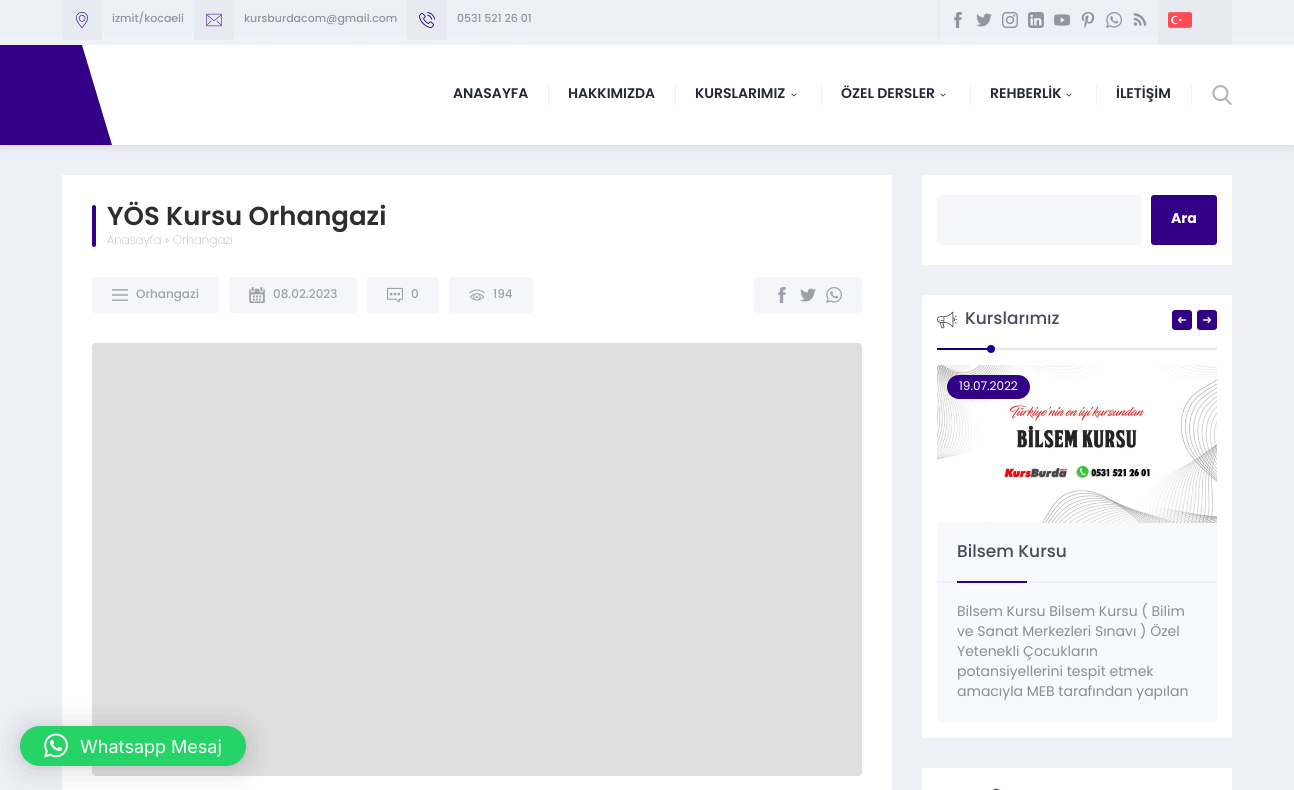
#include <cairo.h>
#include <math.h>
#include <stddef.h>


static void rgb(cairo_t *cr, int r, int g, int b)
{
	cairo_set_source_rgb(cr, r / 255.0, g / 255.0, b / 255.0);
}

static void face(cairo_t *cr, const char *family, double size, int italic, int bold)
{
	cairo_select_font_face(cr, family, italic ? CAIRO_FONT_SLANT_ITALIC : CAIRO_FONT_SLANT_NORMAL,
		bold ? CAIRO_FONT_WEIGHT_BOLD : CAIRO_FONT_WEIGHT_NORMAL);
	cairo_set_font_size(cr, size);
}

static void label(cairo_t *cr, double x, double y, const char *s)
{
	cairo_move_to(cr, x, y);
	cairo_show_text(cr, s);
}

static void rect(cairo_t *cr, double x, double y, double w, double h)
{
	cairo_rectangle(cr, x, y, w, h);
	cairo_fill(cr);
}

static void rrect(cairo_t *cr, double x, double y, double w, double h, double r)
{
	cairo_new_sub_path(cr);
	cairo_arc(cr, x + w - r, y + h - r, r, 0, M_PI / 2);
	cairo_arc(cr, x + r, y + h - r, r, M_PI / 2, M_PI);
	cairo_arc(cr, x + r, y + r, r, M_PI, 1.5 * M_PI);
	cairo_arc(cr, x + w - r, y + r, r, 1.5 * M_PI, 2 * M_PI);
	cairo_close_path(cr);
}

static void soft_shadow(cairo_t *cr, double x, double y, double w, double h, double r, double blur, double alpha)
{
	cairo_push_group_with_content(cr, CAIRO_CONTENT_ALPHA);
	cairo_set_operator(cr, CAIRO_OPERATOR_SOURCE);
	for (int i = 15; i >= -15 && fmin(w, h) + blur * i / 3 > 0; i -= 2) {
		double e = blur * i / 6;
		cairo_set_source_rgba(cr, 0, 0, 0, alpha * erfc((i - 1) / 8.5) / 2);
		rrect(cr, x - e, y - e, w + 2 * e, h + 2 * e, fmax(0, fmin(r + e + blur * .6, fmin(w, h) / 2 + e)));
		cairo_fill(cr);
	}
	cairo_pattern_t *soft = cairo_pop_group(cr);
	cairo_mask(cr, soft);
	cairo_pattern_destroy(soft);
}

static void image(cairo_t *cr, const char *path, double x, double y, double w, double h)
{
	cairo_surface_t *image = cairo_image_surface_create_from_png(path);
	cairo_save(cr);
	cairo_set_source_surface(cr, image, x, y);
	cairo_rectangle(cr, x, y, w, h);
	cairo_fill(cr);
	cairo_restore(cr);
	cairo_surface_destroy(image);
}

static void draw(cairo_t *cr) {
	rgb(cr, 237, 240, 247);
	cairo_paint(cr);
	rgb(cr, 0, 0, 0);
	soft_shadow(cr, 0, 45, 1294, 100, 0, 5, 0.15);
	rgb(cr, 239, 242, 248);
	rect(cr, 0, 35, 1294, 10);
	rgb(cr, 231, 234, 240);
	rect(cr, 62, 0, 40, 40);
	image(cr, "image0.png", 76, 12, 12, 16);
	face(cr, "Poppins Medium", 11, 0, 0);
	rgb(cr, 146, 149, 157);
	label(cr, 112, 22, "izmit/kocaeli");
	rgb(cr, 231, 234, 240);
	rect(cr, 194, 0, 40, 40);
	image(cr, "image1.png", 206, 13, 16, 14);
	rgb(cr, 146, 149, 157);
	label(cr, 244, 22, "kursburdacom@gmail.com");
	rgb(cr, 231, 234, 240);
	rect(cr, 407, 0, 40, 40);
	image(cr, "image2.png", 419, 12, 16, 16);
	rgb(cr, 146, 149, 157);
	label(cr, 457, 22, "0531 521 26 01");
	rgb(cr, 231, 234, 240);
	rect(cr, 938, 0, 2, 40);
	image(cr, "image3.png", 954, 12, 8, 16);
	image(cr, "image4.png", 976, 13, 16, 14);
	image(cr, "image5.png", 1002, 12, 16, 16);
	image(cr, "image6.png", 1028, 12, 16, 16);
	image(cr, "image7.png", 1054, 14, 16, 12);
	image(cr, "image8.png", 1081, 12, 14, 16);
	image(cr, "image9.png", 1106, 12, 16, 16);
	image(cr, "image10.png", 1133, 13, 14, 13);
	rect(cr, 1158, 0, 74, 45);
	image(cr, "image11.png", 1168, 12, 24, 16);
	rgb(cr, 50, 0, 132);
	rect(cr, 0, 45, 112, 100);
	rgb(cr, 255, 255, 255);
	rect(cr, 112, 45, 1182, 100);
	cairo_new_path(cr);
	cairo_move_to(cr, 112, 45);
	cairo_line_to(cr, 112, 145);
	cairo_line_to(cr, 82, 45);
	cairo_close_path(cr);
	cairo_fill(cr);
	face(cr, "Poppins SemiBold", 14, 0, 0);
	rgb(cr, 34, 40, 53);
	label(cr, 453, 98, "ANASAYFA");
	rgb(cr, 237, 240, 247);
	rect(cr, 548, 85, 1, 20);
	rgb(cr, 34, 40, 53);
	label(cr, 568, 98, "HAKKIMIZDA");
	rgb(cr, 237, 240, 247);
	rect(cr, 675, 85, 1, 20);
	rgb(cr, 34, 40, 53);
	label(cr, 695, 98, "KURSLARIMIZ");
	image(cr, "image12.png", 791, 93, 6, 4);
	rgb(cr, 237, 240, 247);
	rect(cr, 821, 85, 1, 20);
	rgb(cr, 34, 40, 53);
	label(cr, 841, 98, "ÖZEL DERSLER");
	image(cr, "image12.png", 940, 93, 6, 4);
	rgb(cr, 237, 240, 247);
	rect(cr, 970, 85, 1, 20);
	rgb(cr, 34, 40, 53);
	label(cr, 990, 98, "REHBERLİK");
	image(cr, "image12.png", 1066, 93, 6, 4);
	rgb(cr, 237, 240, 247);
	rect(cr, 1096, 85, 1, 20);
	rgb(cr, 34, 40, 53);
	label(cr, 1116, 98, "İLETİŞİM");
	rgb(cr, 237, 240, 247);
	rect(cr, 1191, 85, 1, 20);
	image(cr, "image13.png", 1212, 85, 20, 20);
	rgb(cr, 255, 255, 255);
	rect(cr, 62, 175, 830, 615);
	rgb(cr, 50, 0, 132);
	rrect(cr, 92, 205, 4, 42, 2);
	cairo_fill(cr);
	face(cr, "Poppins SemiBold", 26, 0, 0);
	rgb(cr, 46, 46, 46);
	label(cr, 107, 225, "YÖS Kursu Orhangazi");
	face(cr, "Poppins Thin", 12, 0, 0);
	rgb(cr, 111, 111, 111);
	label(cr, 107, 244, "Anasayfa » Orhangazi");
	rgb(cr, 245, 246, 250);
	rrect(cr, 92, 277, 127, 36, 3);
	cairo_fill(cr);
	image(cr, "image14.png", 112, 289, 16, 12);
	face(cr, "Poppins Medium", 12, 0, 0);
	rgb(cr, 158, 161, 169);
	label(cr, 136, 298, "Orhangazi");
	rgb(cr, 245, 246, 250);
	rrect(cr, 229, 277, 128, 36, 3);
	cairo_fill(cr);
	image(cr, "image15.png", 249, 287, 16, 16);
	rgb(cr, 158, 161, 169);
	label(cr, 273, 298, "08.02.2023");
	rgb(cr, 245, 246, 250);
	rrect(cr, 367, 277, 72, 36, 3);
	cairo_fill(cr);
	image(cr, "image16.png", 387, 287, 16, 15);
	rgb(cr, 158, 161, 169);
	label(cr, 411, 298, "0");
	rgb(cr, 245, 246, 250);
	rrect(cr, 449, 277, 84, 36, 3);
	cairo_fill(cr);
	image(cr, "image17.png", 469, 289, 16, 12);
	rgb(cr, 158, 161, 169);
	label(cr, 493, 298, "194");
	rgb(cr, 245, 246, 250);
	rrect(cr, 754, 277, 108, 36, 3);
	cairo_fill(cr);
	image(cr, "image18.png", 778, 287, 8, 16);
	image(cr, "image19.png", 800, 288, 16, 14);
	image(cr, "image20.png", 826, 287, 16, 16);
	rgb(cr, 223, 223, 223);
	rrect(cr, 92, 343, 770, 433, 4);
	cairo_fill(cr);
	rgb(cr, 255, 255, 255);
	rect(cr, 922, 175, 310, 90);
	rgb(cr, 245, 246, 250);
	rrect(cr, 937, 195, 204, 50, 3);
	cairo_fill(cr);
	rgb(cr, 50, 0, 132);
	rrect(cr, 1151, 195, 66, 50, 3);
	cairo_fill(cr);
	face(cr, "Poppins", 14, 0, 1);
	rgb(cr, 255, 255, 255);
	label(cr, 1171, 223, "Ara");
	rect(cr, 922, 295, 310, 443);
	image(cr, "image21.png", 937, 311, 20, 18);
	face(cr, "Poppins Medium", 17, 0, 0);
	rgb(cr, 70, 76, 89);
	label(cr, 965, 324, "Kurslarımız");
	rgb(cr, 229, 232, 239);
	rect(cr, 987, 348, 230, 2);
	rgb(cr, 16, 0, 137);
	cairo_new_path(cr);
	cairo_arc(cr, 991, 349, 4, 0, 2 * M_PI);
	cairo_fill(cr);
	rect(cr, 937, 348, 50, 2);
	rgb(cr, 50, 0, 132);
	rrect(cr, 1172, 310, 20, 20, 3);
	cairo_fill(cr);
	image(cr, "image22.png", 1178, 316, 8, 8);
	rrect(cr, 1197, 310, 20, 20, 3);
	cairo_fill(cr);
	image(cr, "image23.png", 1203, 316, 8, 8);
	rgb(cr, 248, 249, 253);
	rrect(cr, 937, 365, 280, 358, 3);
	cairo_fill(cr);
	image(cr, "image24.png", 937, 365, 280, 158);
	rgb(cr, 50, 0, 132);
	rrect(cr, 947, 375, 83, 24, 12);
	cairo_fill(cr);
	face(cr, "Poppins", 12, 0, 0);
	rgb(cr, 255, 255, 255);
	label(cr, 959, 390, "19.07.2022");
	face(cr, "Poppins Medium", 17, 0, 0);
	rgb(cr, 70, 76, 89);
	label(cr, 957, 557, "Bilsem Kursu");
	rgb(cr, 237, 240, 247);
	rect(cr, 937, 581, 280, 2);
	rgb(cr, 50, 0, 132);
	rect(cr, 957, 581, 70, 2);
	face(cr, "Poppins", 14, 0, 0);
	rgb(cr, 138, 141, 149);
	label(cr, 957, 616, "Bilsem Kursu Bilsem Kursu ( Bilim");
	label(cr, 957, 636, "ve Sanat Merkezleri Sınavı ) Özel");
	label(cr, 957, 656, "Yetenekli Çocukların");
	label(cr, 957, 676, "potansiyellerini tespit etmek");
	label(cr, 957, 696, "amacıyla MEB tarafından yapılan");
	rgb(cr, 255, 255, 255);
	rect(cr, 922, 768, 310, 22);
	image(cr, "image25.png", 992, 788, 8, 2);
	rgb(cr, 0, 0, 0);
	soft_shadow(cr, 20, 728, 226, 40, 20, 16, 0.16);
	soft_shadow(cr, 20, 727, 226, 40, 20, 3, 0.06);
	rgb(cr, 37, 211, 102);
	rrect(cr, 20, 726, 226, 40, 20);
	cairo_fill(cr);
	image(cr, "image26.png", 44, 733, 24, 25);
	face(cr, "Inter", 18, 0, 0);
	rgb(cr, 255, 255, 255);
	label(cr, 80, 753, "Whatsapp Mesaj");
}

int main(void) {
	cairo_surface_t *surface = cairo_image_surface_create(CAIRO_FORMAT_RGB24, 1294, 790);
	cairo_t *cr = cairo_create(surface);
	cairo_font_options_t *options = cairo_font_options_create();
	cairo_font_options_set_hint_metrics(options, CAIRO_HINT_METRICS_OFF);
	cairo_font_options_set_hint_style(options, CAIRO_HINT_STYLE_NONE);
	cairo_set_font_options(cr, options);
	cairo_set_miter_limit(cr, 4);
	draw(cr);
	cairo_surface_write_to_png(surface, "render.png");
	cairo_font_options_destroy(options);
	cairo_destroy(cr);
	cairo_surface_destroy(surface);
	return 0;
}
